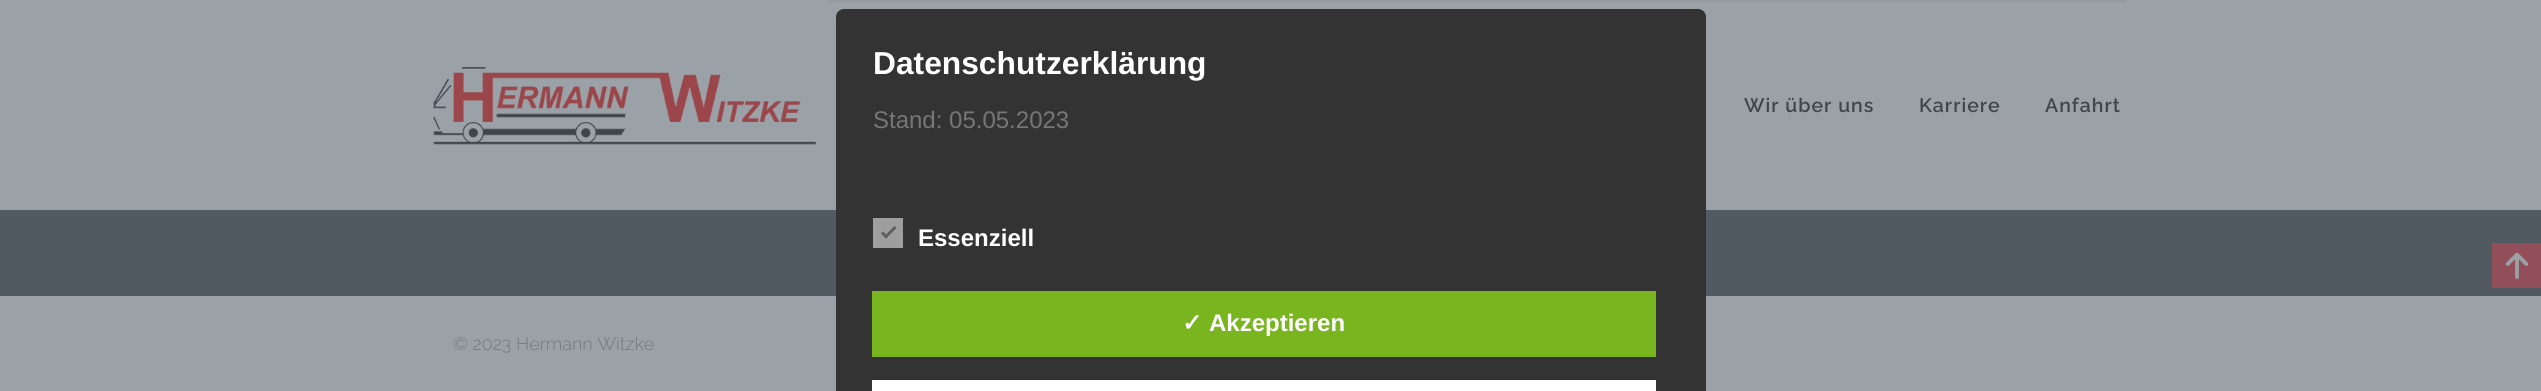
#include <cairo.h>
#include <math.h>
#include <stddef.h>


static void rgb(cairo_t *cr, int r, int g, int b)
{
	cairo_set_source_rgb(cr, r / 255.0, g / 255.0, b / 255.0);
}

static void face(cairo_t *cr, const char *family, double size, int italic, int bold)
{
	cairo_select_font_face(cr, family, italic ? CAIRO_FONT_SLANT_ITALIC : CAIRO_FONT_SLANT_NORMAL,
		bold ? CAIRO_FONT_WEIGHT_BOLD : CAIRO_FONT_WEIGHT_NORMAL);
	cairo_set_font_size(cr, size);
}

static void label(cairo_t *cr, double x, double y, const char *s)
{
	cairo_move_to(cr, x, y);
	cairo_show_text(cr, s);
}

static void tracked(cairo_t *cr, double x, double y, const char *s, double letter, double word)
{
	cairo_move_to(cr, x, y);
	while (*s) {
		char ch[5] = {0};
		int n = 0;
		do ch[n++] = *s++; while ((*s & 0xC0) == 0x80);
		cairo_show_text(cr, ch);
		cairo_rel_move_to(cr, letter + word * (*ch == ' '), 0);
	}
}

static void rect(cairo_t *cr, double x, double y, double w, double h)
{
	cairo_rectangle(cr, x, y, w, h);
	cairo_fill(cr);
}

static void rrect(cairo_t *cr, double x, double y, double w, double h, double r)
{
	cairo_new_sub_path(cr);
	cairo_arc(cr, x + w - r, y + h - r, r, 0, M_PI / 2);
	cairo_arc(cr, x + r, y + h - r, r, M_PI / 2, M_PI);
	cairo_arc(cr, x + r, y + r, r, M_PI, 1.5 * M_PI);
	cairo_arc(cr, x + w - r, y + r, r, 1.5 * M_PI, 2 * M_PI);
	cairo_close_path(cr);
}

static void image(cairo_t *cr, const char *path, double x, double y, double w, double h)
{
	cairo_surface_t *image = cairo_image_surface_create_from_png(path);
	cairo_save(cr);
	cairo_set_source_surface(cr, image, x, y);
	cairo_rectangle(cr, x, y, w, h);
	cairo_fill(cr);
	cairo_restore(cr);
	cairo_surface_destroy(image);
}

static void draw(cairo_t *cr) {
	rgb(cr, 81, 90, 96);
	cairo_paint(cr);
	rgb(cr, 155, 162, 167);
	rect(cr, 0, 0, 2541, 210);
	rect(cr, 0, 296, 2541, 95);
	rgb(cr, 51, 51, 51);
	rrect(cr, 836, 9, 870, 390, 8);
	cairo_fill(cr);
	face(cr, "Liberation Sans", 31.75, 0, 1);
	rgb(cr, 255, 255, 255);
	label(cr, 873, 74, "Datenschutzerklärung");
	face(cr, "Liberation Sans", 24, 0, 0);
	rgb(cr, 118, 118, 118);
	label(cr, 873, 128, "Stand: 05.05.2023");
	rgb(cr, 158, 158, 158);
	rect(cr, 873, 218, 30, 30);
	rgb(cr, 94, 94, 94);
	cairo_new_path(cr);
	cairo_move_to(cr, 894.5, 226);
	cairo_line_to(cr, 896.5, 228);
	cairo_line_to(cr, 886, 238.5);
	cairo_line_to(cr, 884, 236.5);
	cairo_close_path(cr);
	cairo_fill(cr);
	cairo_new_path(cr);
	cairo_move_to(cr, 883, 231.5);
	cairo_line_to(cr, 888, 236.5);
	cairo_line_to(cr, 886, 238.5);
	cairo_line_to(cr, 881, 233.5);
	cairo_close_path(cr);
	cairo_fill(cr);
	face(cr, "Liberation Sans", 24, 0, 1);
	rgb(cr, 255, 255, 255);
	label(cr, 918, 246, "Essenziell");
	rgb(cr, 121, 181, 31);
	rect(cr, 872, 291, 784, 66);
	face(cr, "DejaVu Sans", 24, 0, 1);
	rgb(cr, 255, 255, 255);
	label(cr, 1182, 331, "✓");
	face(cr, "Liberation Sans", 24, 0, 1);
	label(cr, 1209, 331, "Akzeptieren");
	rect(cr, 872, 380, 784, 11);
	image(cr, "image0.png", 433, 67, 383, 78);
	rgb(cr, 147, 155, 159);
	rect(cr, 828, 0, 1298, 2);
	face(cr, "Raleway SemiBold", 19.5, 0, 0);
	rgb(cr, 63, 70, 75);
	tracked(cr, 1744, 112, "Wir über uns", 1, 0);
	tracked(cr, 1919, 112, "Karriere", 1, 0);
	tracked(cr, 2045, 112, "Anfahrt", 1, 0);
	face(cr, "Raleway Light", 18, 0, 0);
	rgb(cr, 112, 120, 124);
	label(cr, 453, 350, "© 2023 Hermann Witzke");
	rgb(cr, 147, 79, 89);
	cairo_new_path(cr);
	cairo_move_to(cr, 2493.5, 243);
	cairo_line_to(cr, 2541, 243);
	cairo_line_to(cr, 2541, 288);
	cairo_line_to(cr, 2492, 288);
	cairo_line_to(cr, 2492, 244.5);
	cairo_curve_to(cr, 2492, 243.5, 2492.5, 243, 2493.5, 243);
	cairo_close_path(cr);
	cairo_fill(cr);
	image(cr, "image1.png", 2505, 252, 24, 27);
}

int main(void) {
	cairo_surface_t *surface = cairo_image_surface_create(CAIRO_FORMAT_RGB24, 2541, 391);
	cairo_t *cr = cairo_create(surface);
	cairo_font_options_t *options = cairo_font_options_create();
	cairo_font_options_set_hint_metrics(options, CAIRO_HINT_METRICS_OFF);
	cairo_font_options_set_hint_style(options, CAIRO_HINT_STYLE_NONE);
	cairo_set_font_options(cr, options);
	cairo_set_miter_limit(cr, 4);
	draw(cr);
	cairo_surface_write_to_png(surface, "render.png");
	cairo_font_options_destroy(options);
	cairo_destroy(cr);
	cairo_surface_destroy(surface);
	return 0;
}
